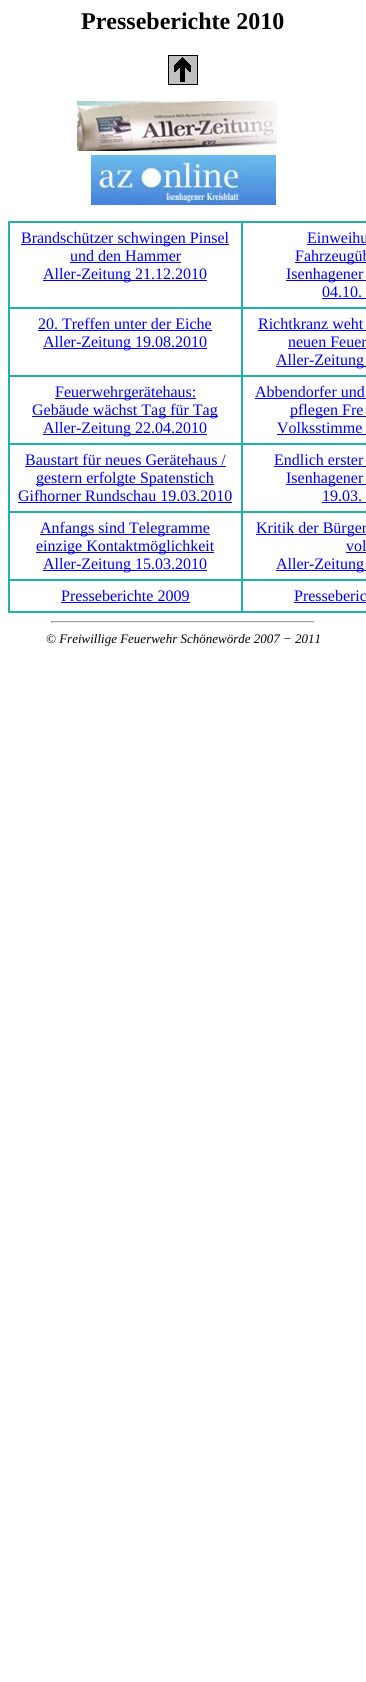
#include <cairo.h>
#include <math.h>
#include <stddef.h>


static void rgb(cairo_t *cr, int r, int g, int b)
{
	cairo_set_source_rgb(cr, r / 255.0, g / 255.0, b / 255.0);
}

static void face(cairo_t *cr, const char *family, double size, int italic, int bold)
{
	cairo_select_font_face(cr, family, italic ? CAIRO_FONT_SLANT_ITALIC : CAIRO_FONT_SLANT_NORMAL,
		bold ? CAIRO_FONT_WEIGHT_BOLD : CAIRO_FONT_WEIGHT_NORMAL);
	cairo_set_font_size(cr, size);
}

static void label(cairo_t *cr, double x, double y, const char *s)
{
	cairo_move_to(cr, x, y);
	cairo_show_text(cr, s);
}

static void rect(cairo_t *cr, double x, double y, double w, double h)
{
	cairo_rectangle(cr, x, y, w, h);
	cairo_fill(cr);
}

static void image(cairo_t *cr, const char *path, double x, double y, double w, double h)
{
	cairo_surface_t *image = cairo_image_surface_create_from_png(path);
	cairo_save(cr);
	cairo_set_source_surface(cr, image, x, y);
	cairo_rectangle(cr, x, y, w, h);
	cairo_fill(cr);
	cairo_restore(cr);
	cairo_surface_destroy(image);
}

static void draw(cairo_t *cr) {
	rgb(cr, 255, 255, 255);
	cairo_paint(cr);
	face(cr, "Liberation Serif", 24, 0, 1);
	rgb(cr, 0, 0, 0);
	label(cr, 81, 29, "Presseberichte 2010");
	image(cr, "image0.png", 168, 55, 30, 30);
	image(cr, "image1.png", 77, 101, 200, 50);
	image(cr, "image2.png", 91, 155, 185, 50);
	cairo_rectangle(cr, 8.5, 221.5, 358, 391);
	rgb(cr, 32, 178, 170);
	cairo_set_line_width(cr, 1);
	cairo_stroke(cr);
	cairo_rectangle(cr, 9.5, 222.5, 232, 85);
	cairo_stroke(cr);
	rgb(cr, 0, 0, 255);
	rect(cr, 21, 244, 208, 1);
	face(cr, "Liberation Serif", 16, 0, 0);
	label(cr, 21, 243, "Brandschützer schwingen Pinsel");
	label(cr, 70, 261, "und den Hammer");
	rect(cr, 70, 262, 111, 1);
	rect(cr, 43, 280, 164, 1);
	label(cr, 43, 279, "Aller-Zeitung 21.12.2010");
	cairo_rectangle(cr, 242.5, 222.5, 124, 85);
	rgb(cr, 32, 178, 170);
	cairo_stroke(cr);
	rgb(cr, 0, 0, 255);
	label(cr, 307, 243, "Einweihu");
	rect(cr, 307, 244, 59, 1);
	rect(cr, 295, 262, 71, 1);
	label(cr, 295, 261, "Fahrzeugüb");
	rect(cr, 286, 280, 80, 1);
	label(cr, 286, 279, "Isenhagener");
	label(cr, 322, 297, "04.10.");
	rect(cr, 322, 298, 44, 1);
	cairo_rectangle(cr, 9.5, 308.5, 232, 67);
	rgb(cr, 32, 178, 170);
	cairo_stroke(cr);
	rgb(cr, 0, 0, 255);
	label(cr, 38, 329, "20. Treffen unter der Eiche");
	rect(cr, 38, 330, 174, 1);
	rect(cr, 43, 348, 164, 1);
	label(cr, 43, 347, "Aller-Zeitung 19.08.2010");
	cairo_rectangle(cr, 242.5, 308.5, 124, 67);
	rgb(cr, 32, 178, 170);
	cairo_stroke(cr);
	rgb(cr, 0, 0, 255);
	label(cr, 258, 329, "Richtkranz weht");
	rect(cr, 258, 330, 108, 1);
	label(cr, 288, 347, "neuen Feuer");
	rect(cr, 288, 348, 78, 1);
	rect(cr, 276, 366, 90, 1);
	label(cr, 276, 365, "Aller-Zeitung");
	cairo_rectangle(cr, 9.5, 376.5, 232, 67);
	rgb(cr, 32, 178, 170);
	cairo_stroke(cr);
	rgb(cr, 0, 0, 255);
	rect(cr, 55, 398, 141, 1);
	label(cr, 55, 397, "Feuerwehrgerätehaus:");
	rect(cr, 32, 416, 186, 1);
	label(cr, 32, 415, "Gebäude wächst Tag für Tag");
	rect(cr, 43, 434, 164, 1);
	label(cr, 43, 433, "Aller-Zeitung 22.04.2010");
	cairo_rectangle(cr, 242.5, 376.5, 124, 67);
	rgb(cr, 32, 178, 170);
	cairo_stroke(cr);
	rgb(cr, 0, 0, 255);
	label(cr, 255, 397, "Abbendorfer und");
	rect(cr, 255, 398, 111, 1);
	rect(cr, 290, 416, 76, 1);
	label(cr, 290, 415, "pflegen Fre");
	label(cr, 277, 433, "Volksstimme");
	rect(cr, 277, 434, 89, 1);
	cairo_rectangle(cr, 9.5, 444.5, 232, 67);
	rgb(cr, 32, 178, 170);
	cairo_stroke(cr);
	rgb(cr, 0, 0, 255);
	label(cr, 25, 465, "Baustart für neues Gerätehaus /");
	rect(cr, 25, 466, 201, 1);
	rect(cr, 36, 484, 178, 1);
	label(cr, 36, 483, "gestern erfolgte Spatenstich");
	label(cr, 18, 501, "Gifhorner Rundschau 19.03.2010");
	rect(cr, 18, 502, 214, 1);
	cairo_rectangle(cr, 242.5, 444.5, 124, 67);
	rgb(cr, 32, 178, 170);
	cairo_stroke(cr);
	rgb(cr, 0, 0, 255);
	label(cr, 274, 465, "Endlich erster");
	rect(cr, 274, 466, 92, 1);
	rect(cr, 286, 484, 80, 1);
	label(cr, 286, 483, "Isenhagener");
	label(cr, 322, 501, "19.03.");
	rect(cr, 322, 502, 44, 1);
	cairo_rectangle(cr, 9.5, 512.5, 232, 67);
	rgb(cr, 32, 178, 170);
	cairo_stroke(cr);
	rgb(cr, 0, 0, 255);
	rect(cr, 40, 534, 170, 1);
	label(cr, 40, 533, "Anfangs sind Telegramme");
	rect(cr, 36, 552, 178, 1);
	label(cr, 36, 551, "einzige Kontaktmöglichkeit");
	rect(cr, 43, 570, 164, 1);
	label(cr, 43, 569, "Aller-Zeitung 15.03.2010");
	cairo_rectangle(cr, 242.5, 512.5, 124, 67);
	rgb(cr, 32, 178, 170);
	cairo_stroke(cr);
	rgb(cr, 0, 0, 255);
	rect(cr, 256, 534, 110, 1);
	label(cr, 256, 533, "Kritik der Bürger");
	label(cr, 346, 551, "vol");
	rect(cr, 346, 552, 20, 1);
	rect(cr, 276, 570, 90, 1);
	label(cr, 276, 569, "Aller-Zeitung");
	cairo_rectangle(cr, 9.5, 580.5, 232, 31);
	rgb(cr, 32, 178, 170);
	cairo_stroke(cr);
	rgb(cr, 0, 0, 255);
	label(cr, 61, 601, "Presseberichte 2009");
	rect(cr, 61, 602, 129, 1);
	cairo_rectangle(cr, 242.5, 580.5, 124, 31);
	rgb(cr, 32, 178, 170);
	cairo_stroke(cr);
	rgb(cr, 0, 0, 255);
	label(cr, 294, 601, "Presseberic");
	rect(cr, 294, 602, 72, 1);
	rgb(cr, 159, 159, 159);
	rect(cr, 51, 621, 264, 1);
	rgb(cr, 238, 238, 238);
	rect(cr, 314, 621, 1, 2);
	rect(cr, 51, 622, 264, 1);
	rgb(cr, 159, 159, 159);
	rect(cr, 51, 621, 1, 2);
	face(cr, "Liberation Serif", 13, 1, 0);
	rgb(cr, 0, 0, 0);
	label(cr, 46, 643, "© Freiwillige Feuerwehr Schönewörde 2007 − 2011");
}

int main(void) {
	cairo_surface_t *surface = cairo_image_surface_create(CAIRO_FORMAT_RGB24, 366, 1682);
	cairo_t *cr = cairo_create(surface);
	cairo_font_options_t *options = cairo_font_options_create();
	cairo_font_options_set_hint_metrics(options, CAIRO_HINT_METRICS_OFF);
	cairo_font_options_set_hint_style(options, CAIRO_HINT_STYLE_NONE);
	cairo_set_font_options(cr, options);
	cairo_set_miter_limit(cr, 4);
	draw(cr);
	cairo_surface_write_to_png(surface, "render.png");
	cairo_font_options_destroy(options);
	cairo_destroy(cr);
	cairo_surface_destroy(surface);
	return 0;
}
